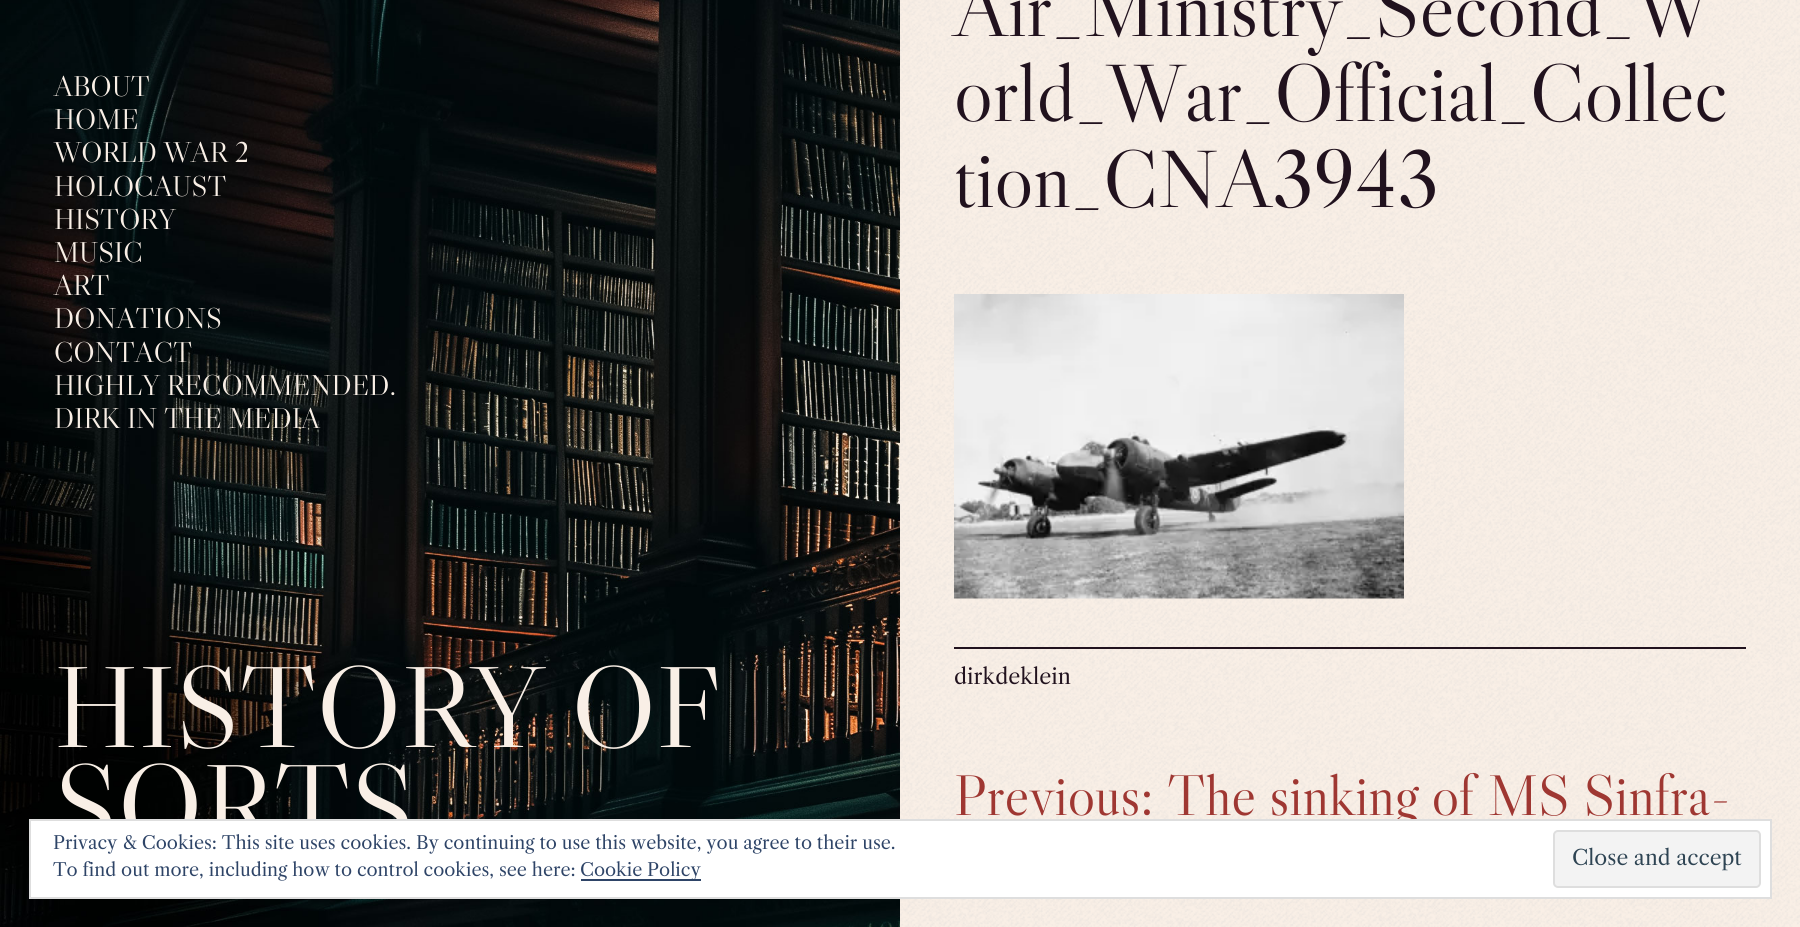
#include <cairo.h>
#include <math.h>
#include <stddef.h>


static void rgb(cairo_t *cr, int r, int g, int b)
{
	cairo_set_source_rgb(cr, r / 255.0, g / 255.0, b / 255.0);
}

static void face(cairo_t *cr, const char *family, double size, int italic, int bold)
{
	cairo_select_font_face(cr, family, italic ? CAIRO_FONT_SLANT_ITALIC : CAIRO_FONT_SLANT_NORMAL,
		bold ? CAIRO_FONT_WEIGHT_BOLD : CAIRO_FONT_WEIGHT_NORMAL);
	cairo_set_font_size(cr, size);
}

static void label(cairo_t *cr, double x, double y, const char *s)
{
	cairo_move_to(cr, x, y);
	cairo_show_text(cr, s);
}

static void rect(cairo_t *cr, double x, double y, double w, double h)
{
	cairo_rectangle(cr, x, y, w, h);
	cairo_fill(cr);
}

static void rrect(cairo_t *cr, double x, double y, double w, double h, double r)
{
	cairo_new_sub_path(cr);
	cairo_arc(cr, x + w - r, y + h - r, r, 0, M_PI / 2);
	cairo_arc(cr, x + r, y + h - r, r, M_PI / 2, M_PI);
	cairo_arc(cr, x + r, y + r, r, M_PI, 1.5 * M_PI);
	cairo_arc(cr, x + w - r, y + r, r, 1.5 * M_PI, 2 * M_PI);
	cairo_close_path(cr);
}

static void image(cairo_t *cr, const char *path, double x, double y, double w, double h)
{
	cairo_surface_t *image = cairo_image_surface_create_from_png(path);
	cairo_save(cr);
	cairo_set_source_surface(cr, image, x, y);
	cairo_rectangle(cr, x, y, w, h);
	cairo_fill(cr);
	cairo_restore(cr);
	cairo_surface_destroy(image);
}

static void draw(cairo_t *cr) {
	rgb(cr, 249, 239, 230);
	cairo_paint(cr);
	image(cr, "image0.png", 0, 0, 900, 927);
	face(cr, "Libre Caslon Display", 28.75, 0, 0);
	rgb(cr, 249, 239, 230);
	label(cr, 54, 96, "ABOUT");
	label(cr, 54, 129, "HOME");
	label(cr, 54, 162, "WORLD WAR 2");
	label(cr, 54, 196, "HOLOCAUST");
	label(cr, 54, 229, "HISTORY");
	label(cr, 54, 262, "MUSIC");
	label(cr, 54, 295, "ART");
	label(cr, 54, 328, "DONATIONS");
	label(cr, 54, 362, "CONTACT");
	label(cr, 54, 395, "HIGHLY RECOMMENDED.");
	label(cr, 54, 428, "DIRK IN THE MEDIA");
	face(cr, "Libre Caslon Display", 115.75, 0, 0);
	label(cr, 54, 747, "HISTORY OF");
	label(cr, 54, 845, "SORTS");
	image(cr, "image1.png", 900, 0, 900, 927);
	face(cr, "Libre Caslon Display", 81.5, 0, 0);
	rgb(cr, 33, 18, 30);
	label(cr, 954, 36, "Air_Ministry_Second_W");
	label(cr, 954, 121, "orld_War_Official_Collec");
	label(cr, 954, 207, "tion_CNA3943");
	image(cr, "image2.png", 954, 294, 450, 305);
	rect(cr, 954, 647, 792, 2);
	face(cr, "Libre Caslon Text", 21.5, 0, 0);
	label(cr, 954, 684, "dirkdeklein");
	face(cr, "Libre Caslon Display", 57.4, 0, 0);
	rgb(cr, 159, 55, 50);
	label(cr, 954, 815, "Previous: The sinking of MS Sinfra-");
	rgb(cr, 255, 255, 255);
	cairo_rectangle(cr, 30, 820, 1741, 78);
	cairo_fill_preserve(cr);
	rgb(cr, 222, 222, 222);
	cairo_stroke(cr);
	face(cr, "Libre Caslon Text", 18, 0, 0);
	rgb(cr, 46, 68, 103);
	label(cr, 53, 849, "Privacy & Cookies: This site uses cookies. By continuing to use this website, you agree to their use.");
	label(cr, 53, 876, "To find out more, including how to control cookies, see here:");
	rect(cr, 581, 879, 120, 2);
	label(cr, 580, 876, "Cookie Policy");
	rgb(cr, 243, 243, 243);
	rrect(cr, 1554, 831, 206, 56, 4);
	cairo_fill_preserve(cr);
	rgb(cr, 222, 222, 222);
	cairo_stroke(cr);
	face(cr, "Libre Caslon Text", 21, 0, 0);
	rgb(cr, 46, 68, 83);
	label(cr, 1572, 865, "Close and accept");
}

int main(void) {
	cairo_surface_t *surface = cairo_image_surface_create(CAIRO_FORMAT_RGB24, 1800, 927);
	cairo_t *cr = cairo_create(surface);
	cairo_font_options_t *options = cairo_font_options_create();
	cairo_font_options_set_hint_metrics(options, CAIRO_HINT_METRICS_OFF);
	cairo_font_options_set_hint_style(options, CAIRO_HINT_STYLE_NONE);
	cairo_set_font_options(cr, options);
	cairo_set_miter_limit(cr, 4);
	draw(cr);
	cairo_surface_write_to_png(surface, "render.png");
	cairo_font_options_destroy(options);
	cairo_destroy(cr);
	cairo_surface_destroy(surface);
	return 0;
}
